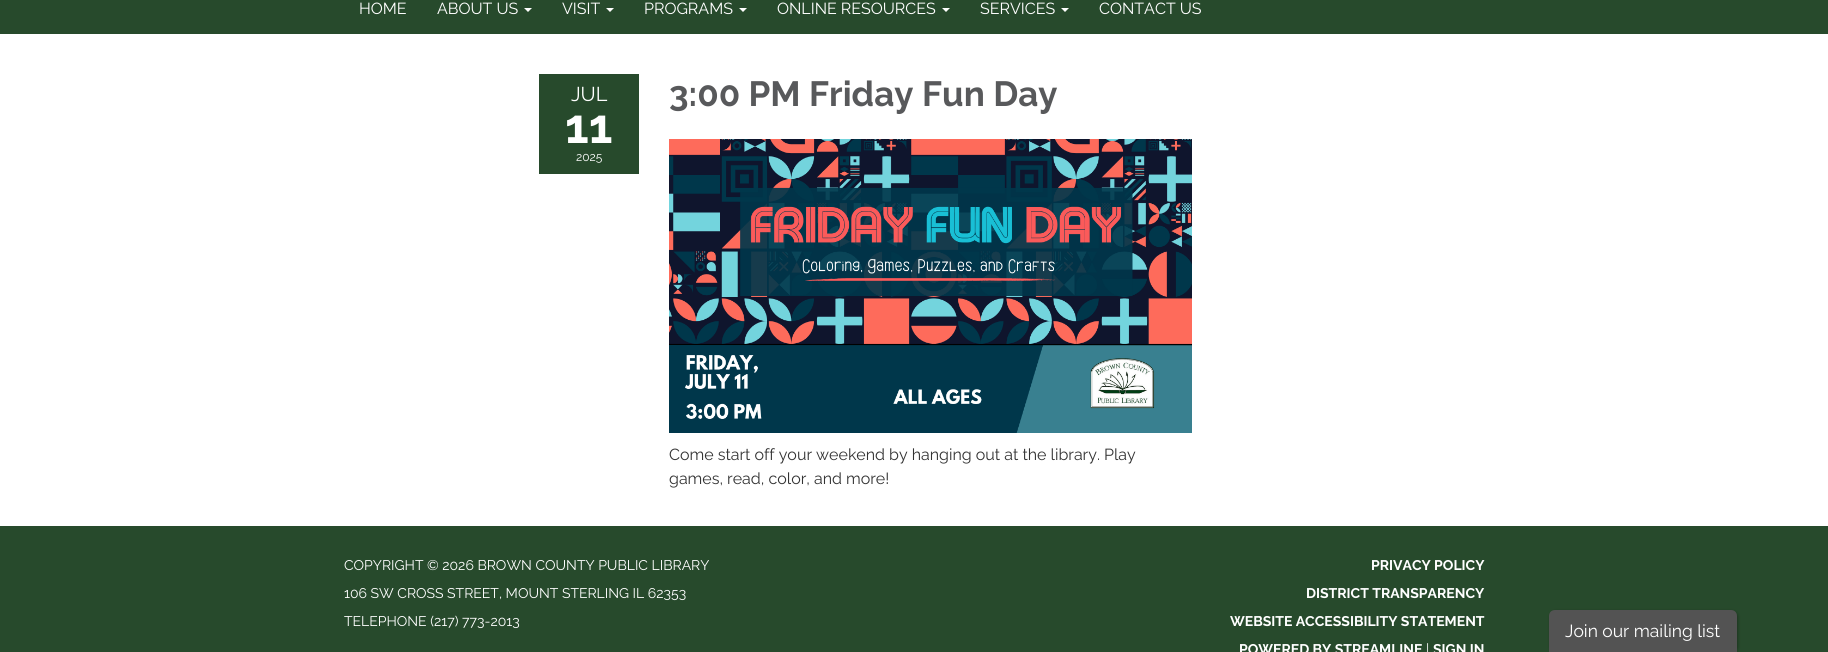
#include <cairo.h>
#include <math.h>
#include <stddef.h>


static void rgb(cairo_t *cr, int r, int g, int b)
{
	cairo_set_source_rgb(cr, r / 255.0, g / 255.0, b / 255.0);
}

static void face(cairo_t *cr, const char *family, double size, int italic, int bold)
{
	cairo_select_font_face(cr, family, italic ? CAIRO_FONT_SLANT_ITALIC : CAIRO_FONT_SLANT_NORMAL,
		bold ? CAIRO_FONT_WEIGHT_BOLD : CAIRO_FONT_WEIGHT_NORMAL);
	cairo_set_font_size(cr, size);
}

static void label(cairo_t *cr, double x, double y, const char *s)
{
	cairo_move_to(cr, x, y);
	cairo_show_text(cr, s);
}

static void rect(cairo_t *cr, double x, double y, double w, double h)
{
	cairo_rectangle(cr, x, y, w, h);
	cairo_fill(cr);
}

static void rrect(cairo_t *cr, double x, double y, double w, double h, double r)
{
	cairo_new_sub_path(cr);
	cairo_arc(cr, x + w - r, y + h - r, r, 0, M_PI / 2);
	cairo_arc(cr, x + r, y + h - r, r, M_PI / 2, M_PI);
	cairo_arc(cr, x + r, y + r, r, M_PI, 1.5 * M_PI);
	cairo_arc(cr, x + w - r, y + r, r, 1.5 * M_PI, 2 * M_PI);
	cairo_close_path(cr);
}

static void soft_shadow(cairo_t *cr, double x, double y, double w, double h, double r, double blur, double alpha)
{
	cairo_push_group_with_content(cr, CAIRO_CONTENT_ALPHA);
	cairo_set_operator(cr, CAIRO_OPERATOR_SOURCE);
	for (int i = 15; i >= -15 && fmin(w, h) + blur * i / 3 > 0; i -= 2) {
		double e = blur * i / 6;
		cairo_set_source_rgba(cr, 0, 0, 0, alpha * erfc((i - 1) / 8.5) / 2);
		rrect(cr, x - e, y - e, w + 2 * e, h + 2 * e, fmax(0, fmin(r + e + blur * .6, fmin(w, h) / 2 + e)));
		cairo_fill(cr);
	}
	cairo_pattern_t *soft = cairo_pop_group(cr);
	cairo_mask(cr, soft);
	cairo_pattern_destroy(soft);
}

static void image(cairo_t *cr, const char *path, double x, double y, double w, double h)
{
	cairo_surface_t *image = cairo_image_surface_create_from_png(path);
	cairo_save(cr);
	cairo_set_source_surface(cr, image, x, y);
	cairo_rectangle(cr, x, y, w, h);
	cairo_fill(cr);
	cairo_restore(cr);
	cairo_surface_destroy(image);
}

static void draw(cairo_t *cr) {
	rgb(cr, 39, 74, 44);
	cairo_paint(cr);
	face(cr, "Raleway", 16, 0, 0);
	rgb(cr, 255, 255, 255);
	label(cr, 359, 14, "HOME");
	label(cr, 437, 14, "ABOUT US");
	cairo_new_path(cr);
	cairo_move_to(cr, 524, 8);
	cairo_line_to(cr, 532, 8);
	cairo_line_to(cr, 528, 12);
	cairo_close_path(cr);
	cairo_fill(cr);
	label(cr, 562, 14, "VISIT");
	cairo_new_path(cr);
	cairo_move_to(cr, 606, 8);
	cairo_line_to(cr, 614, 8);
	cairo_line_to(cr, 610, 12);
	cairo_close_path(cr);
	cairo_fill(cr);
	label(cr, 644, 14, "PROGRAMS");
	cairo_new_path(cr);
	cairo_move_to(cr, 739, 8);
	cairo_line_to(cr, 747, 8);
	cairo_line_to(cr, 743, 12);
	cairo_close_path(cr);
	cairo_fill(cr);
	label(cr, 777, 14, "ONLINE RESOURCES");
	cairo_new_path(cr);
	cairo_move_to(cr, 942, 8);
	cairo_line_to(cr, 950, 8);
	cairo_line_to(cr, 946, 12);
	cairo_close_path(cr);
	cairo_fill(cr);
	label(cr, 980, 14, "SERVICES");
	cairo_new_path(cr);
	cairo_move_to(cr, 1061, 8);
	cairo_line_to(cr, 1069, 8);
	cairo_line_to(cr, 1065, 12);
	cairo_close_path(cr);
	cairo_fill(cr);
	label(cr, 1099, 14, "CONTACT US");
	rect(cr, 0, 34, 1828, 492);
	rgb(cr, 39, 74, 44);
	rect(cr, 539, 74, 100, 100);
	face(cr, "Raleway", 20, 0, 0);
	rgb(cr, 255, 255, 255);
	label(cr, 571, 101, "JUL");
	face(cr, "Raleway", 48, 0, 1);
	label(cr, 565, 143, "11");
	face(cr, "Raleway", 12, 0, 0);
	label(cr, 576, 161, "2025");
	face(cr, "Raleway", 35, 0, 1);
	rgb(cr, 88, 89, 91);
	label(cr, 669, 106, "3:00 PM Friday Fun Day");
	image(cr, "image0.png", 669, 139, 523, 294);
	face(cr, "Raleway", 16, 0, 0);
	rgb(cr, 51, 51, 51);
	label(cr, 669, 460, "Come start off your weekend by hanging out at the library. Play");
	label(cr, 669, 484, "games, read, color, and more!");
	face(cr, "Raleway", 14, 0, 0);
	rgb(cr, 255, 255, 255);
	label(cr, 344, 570, "COPYRIGHT © 2026 BROWN COUNTY PUBLIC LIBRARY");
	label(cr, 344, 598, "106 SW CROSS STREET, MOUNT STERLING IL 62353");
	label(cr, 344, 626, "TELEPHONE (217) 773-2013");
	face(cr, "Raleway", 14, 0, 1);
	label(cr, 1371, 570, "PRIVACY POLICY");
	label(cr, 1306, 598, "DISTRICT TRANSPARENCY");
	label(cr, 1230, 626, "WEBSITE ACCESSIBILITY STATEMENT");
	label(cr, 1239, 654, "POWERED BY STREAMLINE");
	face(cr, "Raleway", 14, 0, 0);
	label(cr, 1426, 654, "|");
	face(cr, "Raleway", 14, 0, 1);
	label(cr, 1433, 654, "SIGN IN");
	rgb(cr, 0, 0, 0);
	soft_shadow(cr, 1550, 611, 188, 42, 6, 1.5, 0.3);
	rgb(cr, 83, 83, 83);
	cairo_new_path(cr);
	cairo_move_to(cr, 1555, 610);
	cairo_line_to(cr, 1731, 610);
	cairo_curve_to(cr, 1734.5, 610, 1737, 612.5, 1737, 616);
	cairo_line_to(cr, 1737, 652);
	cairo_line_to(cr, 1549, 652);
	cairo_line_to(cr, 1549, 616);
	cairo_curve_to(cr, 1549, 612.5, 1551.5, 610, 1555, 610);
	cairo_close_path(cr);
	cairo_fill(cr);
	face(cr, "Raleway", 17.5, 0, 0);
	rgb(cr, 255, 255, 255);
	label(cr, 1565, 637, "Join our mailing list");
}

int main(void) {
	cairo_surface_t *surface = cairo_image_surface_create(CAIRO_FORMAT_RGB24, 1828, 652);
	cairo_t *cr = cairo_create(surface);
	cairo_font_options_t *options = cairo_font_options_create();
	cairo_font_options_set_hint_metrics(options, CAIRO_HINT_METRICS_OFF);
	cairo_font_options_set_hint_style(options, CAIRO_HINT_STYLE_NONE);
	cairo_set_font_options(cr, options);
	cairo_set_miter_limit(cr, 4);
	draw(cr);
	cairo_surface_write_to_png(surface, "render.png");
	cairo_font_options_destroy(options);
	cairo_destroy(cr);
	cairo_surface_destroy(surface);
	return 0;
}
